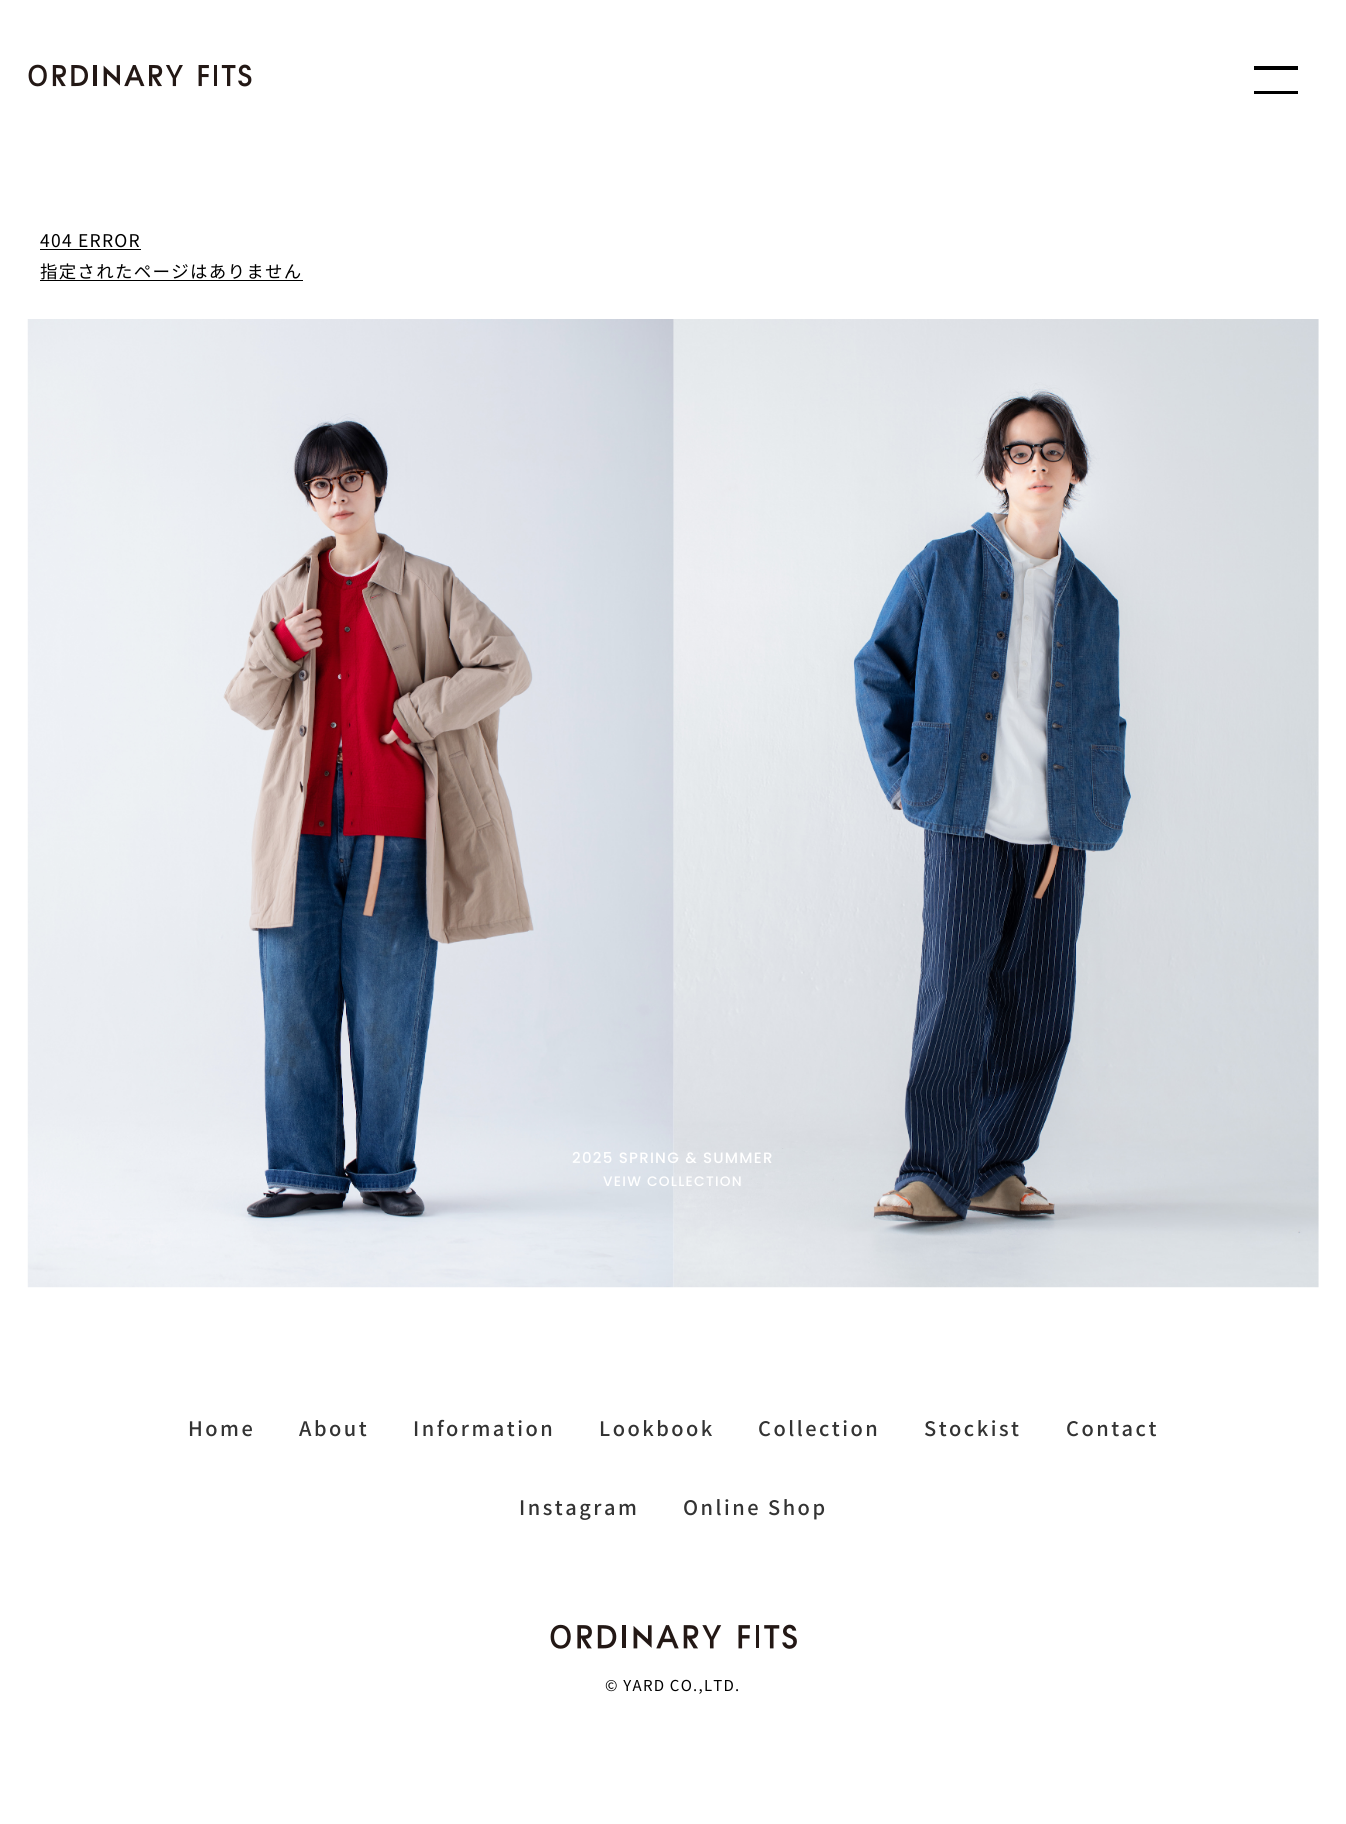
#include <cairo.h>
#include <math.h>
#include <stddef.h>


static void rgb(cairo_t *cr, int r, int g, int b)
{
	cairo_set_source_rgb(cr, r / 255.0, g / 255.0, b / 255.0);
}

static void face(cairo_t *cr, const char *family, double size, int italic, int bold)
{
	cairo_select_font_face(cr, family, italic ? CAIRO_FONT_SLANT_ITALIC : CAIRO_FONT_SLANT_NORMAL,
		bold ? CAIRO_FONT_WEIGHT_BOLD : CAIRO_FONT_WEIGHT_NORMAL);
	cairo_set_font_size(cr, size);
}

static void tracked(cairo_t *cr, double x, double y, const char *s, double letter, double word)
{
	cairo_move_to(cr, x, y);
	while (*s) {
		char ch[5] = {0};
		int n = 0;
		do ch[n++] = *s++; while ((*s & 0xC0) == 0x80);
		cairo_show_text(cr, ch);
		cairo_rel_move_to(cr, letter + word * (*ch == ' '), 0);
	}
}

static void rect(cairo_t *cr, double x, double y, double w, double h)
{
	cairo_rectangle(cr, x, y, w, h);
	cairo_fill(cr);
}

static void image(cairo_t *cr, const char *path, double x, double y, double w, double h)
{
	cairo_surface_t *image = cairo_image_surface_create_from_png(path);
	cairo_save(cr);
	cairo_set_source_surface(cr, image, x, y);
	cairo_rectangle(cr, x, y, w, h);
	cairo_fill(cr);
	cairo_restore(cr);
	cairo_surface_destroy(image);
}

static void draw(cairo_t *cr) {
	rgb(cr, 255, 255, 255);
	cairo_paint(cr);
	rgb(cr, 0, 0, 0);
	rect(cr, 1254, 66, 44, 4);
	rect(cr, 1254, 91, 44, 3);
	image(cr, "image0.png", 28, 64, 224, 23);
	face(cr, "Noto Sans JP", 17.5, 0, 0);
	tracked(cr, 40, 247, "404 ERROR", 1.25, 0);
	rect(cr, 40, 249, 101, 1);
	tracked(cr, 40, 278, "指定されたページはありません", 1.25, 0);
	rect(cr, 40, 280, 263, 1);
	image(cr, "image1.png", 27, 319, 647, 969);
	image(cr, "image2.png", 673, 319, 646, 969);
	face(cr, "Poppins Medium", 15, 0, 0);
	rgb(cr, 255, 255, 255);
	tracked(cr, 572, 1163, "2025 SPRING & SUMMER", 1.25, 0);
	face(cr, "Poppins Medium", 13.75, 0, 0);
	tracked(cr, 603, 1186, "VEIW COLLECTION", 1.25, 0);
	face(cr, "Noto Sans JP Medium", 20, 0, 0);
	rgb(cr, 51, 51, 51);
	tracked(cr, 188, 1436, "Home", 2.5, 0);
	tracked(cr, 299, 1436, "About", 2.5, 0);
	tracked(cr, 413, 1436, "Information", 2.5, 0);
	tracked(cr, 599, 1436, "Lookbook", 2.5, 0);
	tracked(cr, 758, 1436, "Collection", 2.5, 0);
	tracked(cr, 924, 1436, "Stockist", 2.5, 0);
	tracked(cr, 1066, 1436, "Contact", 2.5, 0);
	tracked(cr, 519, 1515, "Instagram", 2.5, 0);
	tracked(cr, 683, 1515, "Online Shop", 2.5, 0);
	image(cr, "image3.png", 550, 1624, 247, 25);
	face(cr, "Noto Sans JP", 15, 0, 0);
	rgb(cr, 0, 0, 0);
	tracked(cr, 605, 1691, "© YARD CO.,LTD.", 1.25, 0);
}

int main(void) {
	cairo_surface_t *surface = cairo_image_surface_create(CAIRO_FORMAT_RGB24, 1346, 1824);
	cairo_t *cr = cairo_create(surface);
	cairo_font_options_t *options = cairo_font_options_create();
	cairo_font_options_set_hint_metrics(options, CAIRO_HINT_METRICS_OFF);
	cairo_font_options_set_hint_style(options, CAIRO_HINT_STYLE_NONE);
	cairo_set_font_options(cr, options);
	cairo_set_miter_limit(cr, 4);
	draw(cr);
	cairo_surface_write_to_png(surface, "render.png");
	cairo_font_options_destroy(options);
	cairo_destroy(cr);
	cairo_surface_destroy(surface);
	return 0;
}
